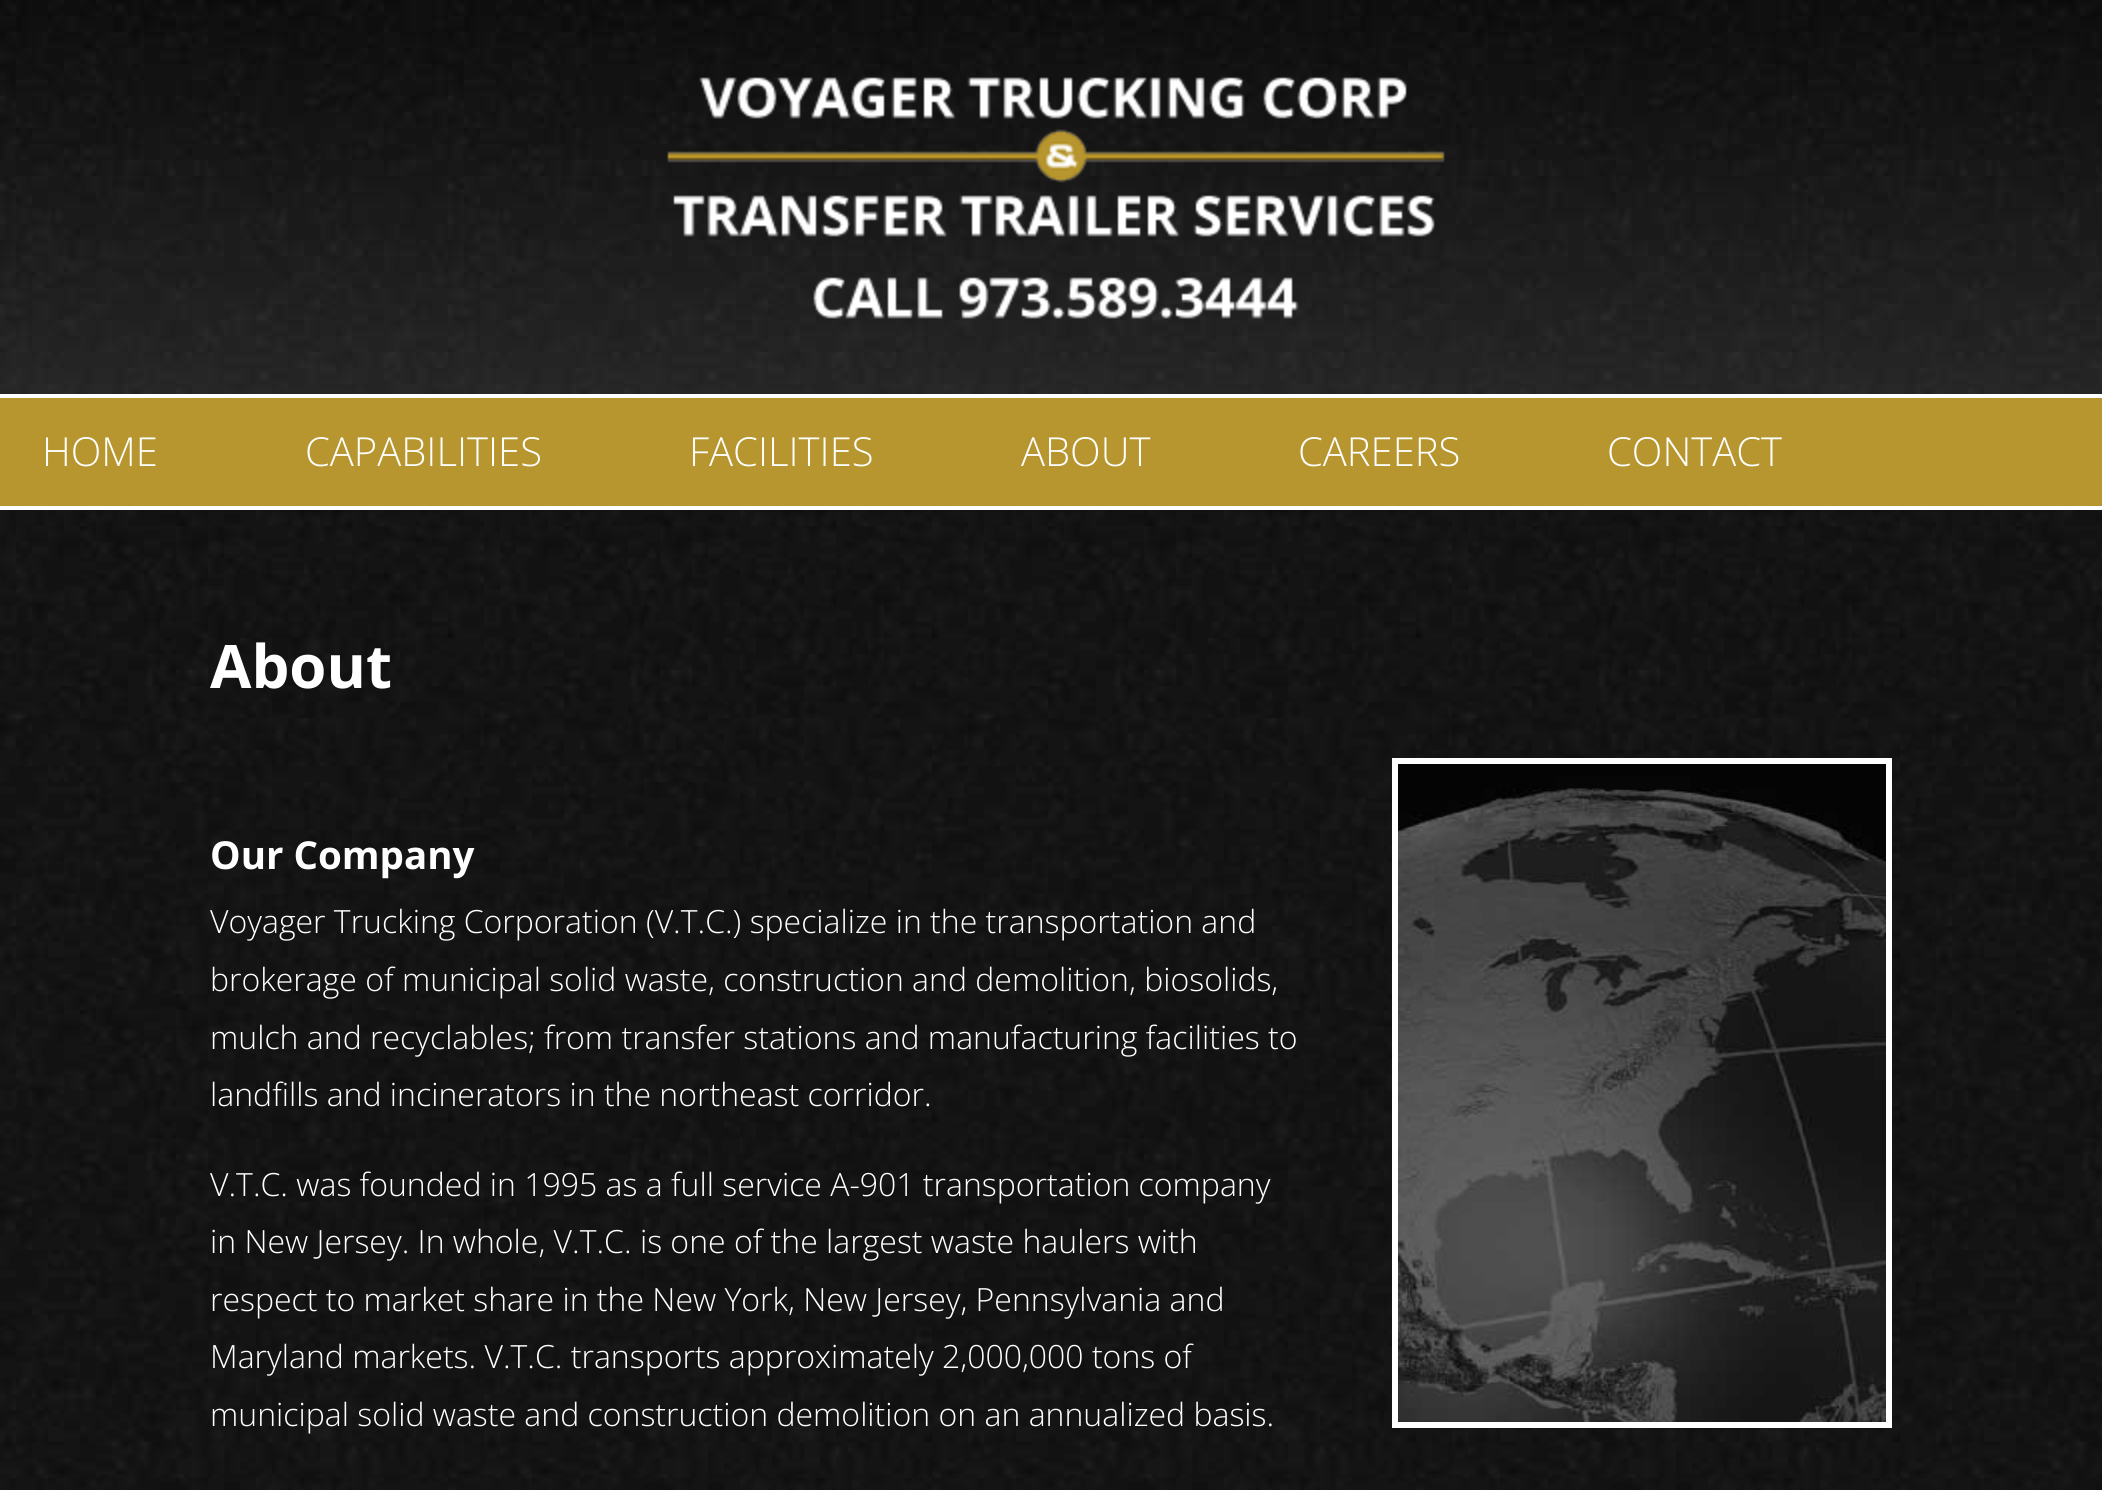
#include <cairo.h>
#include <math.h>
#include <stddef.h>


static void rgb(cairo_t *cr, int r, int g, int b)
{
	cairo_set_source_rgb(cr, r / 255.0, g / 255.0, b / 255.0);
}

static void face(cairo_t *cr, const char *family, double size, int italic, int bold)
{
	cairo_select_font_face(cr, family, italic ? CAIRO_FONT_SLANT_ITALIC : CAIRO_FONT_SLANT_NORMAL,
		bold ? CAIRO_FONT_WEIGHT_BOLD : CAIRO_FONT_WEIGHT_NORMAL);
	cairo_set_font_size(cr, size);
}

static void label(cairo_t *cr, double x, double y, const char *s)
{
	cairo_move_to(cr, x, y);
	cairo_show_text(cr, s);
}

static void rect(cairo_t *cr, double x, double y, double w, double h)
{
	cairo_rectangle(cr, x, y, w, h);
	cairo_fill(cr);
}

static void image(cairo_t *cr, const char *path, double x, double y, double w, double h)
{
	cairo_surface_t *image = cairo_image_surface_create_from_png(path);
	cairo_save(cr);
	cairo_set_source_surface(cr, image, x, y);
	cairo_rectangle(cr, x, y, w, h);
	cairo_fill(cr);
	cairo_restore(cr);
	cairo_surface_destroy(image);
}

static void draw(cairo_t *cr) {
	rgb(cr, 255, 255, 255);
	cairo_paint(cr);
	image(cr, "image2.png", 0, 510, 2102, 980);
	cairo_set_source_rgba(cr, 0, 0, 0, 0.1);
	rect(cr, 129, 511, 1938, 1);
	image(cr, "image0.png", 0, 0, 2102, 394);
	image(cr, "image1.png", 667, 77, 778, 242);
	rgb(cr, 183, 150, 47);
	rect(cr, 0, 398, 2102, 108);
	face(cr, "Open Sans Light", 40, 0, 0);
	rgb(cr, 255, 255, 255);
	label(cr, 42, 466, "HOME");
	label(cr, 305, 466, "CAPABILITIES");
	label(cr, 689, 466, "FACILITIES");
	label(cr, 1021, 466, "ABOUT");
	label(cr, 1298, 466, "CAREERS");
	label(cr, 1607, 466, "CONTACT");
	face(cr, "Open Sans", 60, 0, 1);
	label(cr, 210, 688, "About");
	face(cr, "Open Sans", 38.5, 0, 1);
	label(cr, 210, 869, "Our Company");
	face(cr, "Open Sans Light", 32, 0, 0);
	label(cr, 210, 933, "Voyager Trucking Corporation (V.T.C.) specialize in the transportation and");
	label(cr, 210, 991, "brokerage of municipal solid waste, construction and demolition, biosolids,");
	label(cr, 210, 1049, "mulch and recyclables; from transfer stations and manufacturing facilities to");
	label(cr, 210, 1106, "landfills and incinerators in the northeast corridor.");
	label(cr, 210, 1196, "V.T.C. was founded in 1995 as a full service A-901 transportation company");
	label(cr, 210, 1253, "in New Jersey. In whole, V.T.C. is one of the largest waste haulers with");
	label(cr, 210, 1311, "respect to market share in the New York, New Jersey, Pennsylvania and");
	label(cr, 210, 1368, "Maryland markets. V.T.C. transports approximately 2,000,000 tons of");
	label(cr, 210, 1426, "municipal solid waste and construction demolition on an annualized basis.");
	cairo_rectangle(cr, 1395, 761, 494, 664);
	cairo_set_line_width(cr, 6);
	cairo_stroke(cr);
	image(cr, "image3.png", 1398, 764, 488, 658);
}

int main(void) {
	cairo_surface_t *surface = cairo_image_surface_create(CAIRO_FORMAT_RGB24, 2102, 1490);
	cairo_t *cr = cairo_create(surface);
	cairo_font_options_t *options = cairo_font_options_create();
	cairo_font_options_set_hint_metrics(options, CAIRO_HINT_METRICS_OFF);
	cairo_font_options_set_hint_style(options, CAIRO_HINT_STYLE_NONE);
	cairo_set_font_options(cr, options);
	cairo_set_miter_limit(cr, 4);
	draw(cr);
	cairo_surface_write_to_png(surface, "render.png");
	cairo_font_options_destroy(options);
	cairo_destroy(cr);
	cairo_surface_destroy(surface);
	return 0;
}
